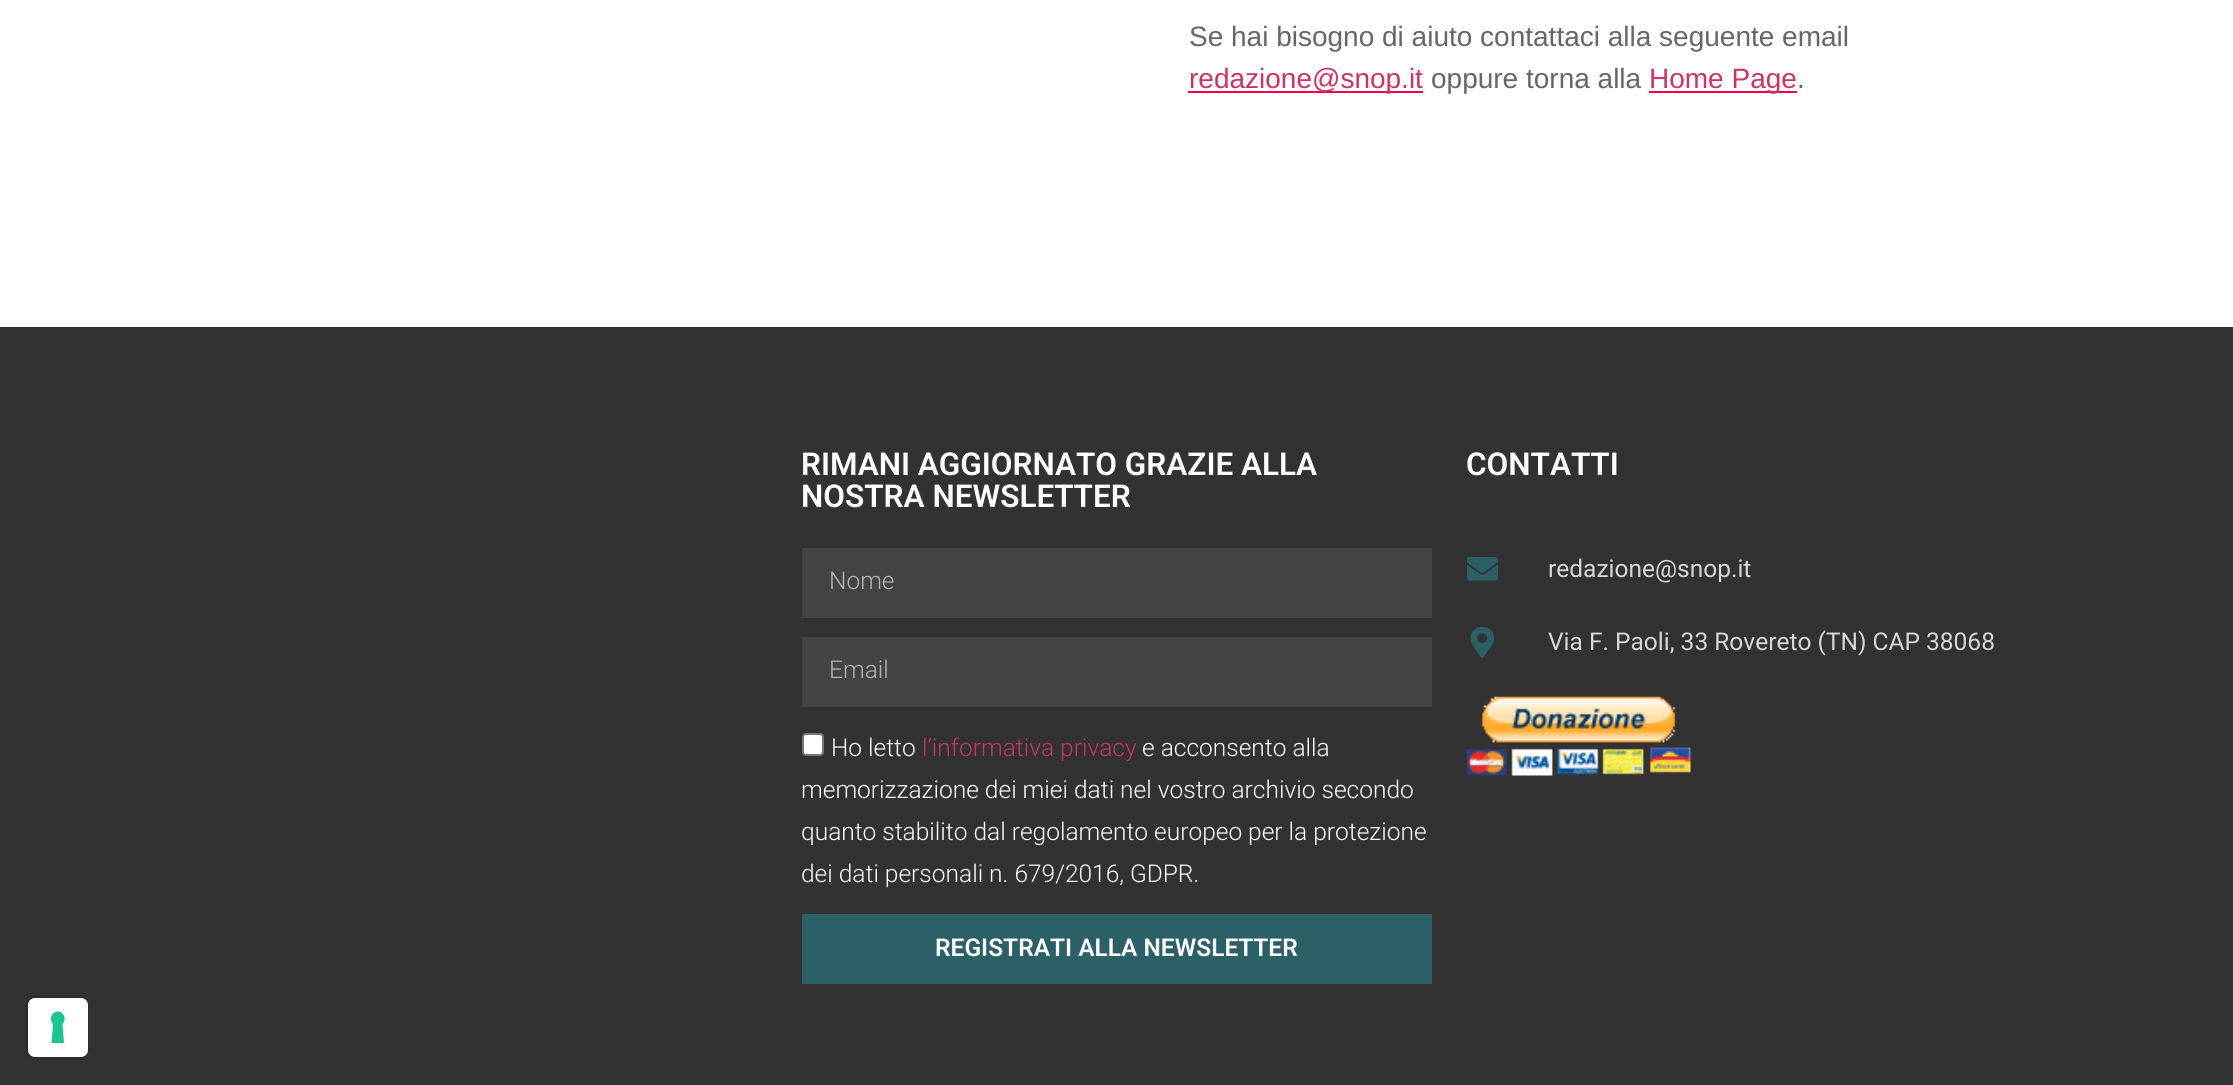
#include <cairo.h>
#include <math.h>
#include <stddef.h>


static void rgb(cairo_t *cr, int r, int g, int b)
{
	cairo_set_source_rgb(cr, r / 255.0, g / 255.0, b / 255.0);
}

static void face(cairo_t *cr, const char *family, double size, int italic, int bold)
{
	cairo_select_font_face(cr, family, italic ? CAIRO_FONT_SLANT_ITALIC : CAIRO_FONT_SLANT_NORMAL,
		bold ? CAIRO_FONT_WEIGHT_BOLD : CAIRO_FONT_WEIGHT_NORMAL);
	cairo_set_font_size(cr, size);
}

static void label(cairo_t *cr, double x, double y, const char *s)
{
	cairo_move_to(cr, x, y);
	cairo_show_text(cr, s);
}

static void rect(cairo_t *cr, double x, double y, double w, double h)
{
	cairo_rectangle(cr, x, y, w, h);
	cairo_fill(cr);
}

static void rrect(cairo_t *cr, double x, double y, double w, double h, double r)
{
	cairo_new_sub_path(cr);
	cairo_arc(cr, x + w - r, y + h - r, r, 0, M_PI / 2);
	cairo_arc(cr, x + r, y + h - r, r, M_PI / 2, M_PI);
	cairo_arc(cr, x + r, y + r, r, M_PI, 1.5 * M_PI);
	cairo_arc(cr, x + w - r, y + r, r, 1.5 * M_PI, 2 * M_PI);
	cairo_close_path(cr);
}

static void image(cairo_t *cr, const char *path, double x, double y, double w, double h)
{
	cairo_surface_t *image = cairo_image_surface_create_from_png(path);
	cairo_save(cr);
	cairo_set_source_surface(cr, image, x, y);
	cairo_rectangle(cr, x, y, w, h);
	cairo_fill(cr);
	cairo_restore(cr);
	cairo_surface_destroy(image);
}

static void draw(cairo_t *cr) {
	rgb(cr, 255, 255, 255);
	cairo_paint(cr);
	face(cr, "Liberation Sans", 28, 0, 0);
	rgb(cr, 102, 102, 102);
	label(cr, 1189, 46, "Se hai bisogno di aiuto contattaci alla seguente email");
	rgb(cr, 244, 0, 69);
	rect(cr, 1188, 91, 235, 2);
	rgb(cr, 204, 51, 102);
	label(cr, 1189, 88, "redazione@snop.it");
	rgb(cr, 102, 102, 102);
	label(cr, 1431, 88, "oppure torna alla");
	rgb(cr, 244, 0, 69);
	rect(cr, 1649, 91, 148, 2);
	rgb(cr, 204, 51, 102);
	label(cr, 1649, 88, "Home Page");
	rgb(cr, 102, 102, 102);
	label(cr, 1797, 88, ".");
	rgb(cr, 50, 50, 50);
	rect(cr, 0, 327, 2233, 758);
	face(cr, "Roboto SemiBold", 31.5, 0, 0);
	rgb(cr, 255, 255, 255);
	label(cr, 801, 475, "RIMANI AGGIORNATO GRAZIE ALLA");
	label(cr, 801, 507, "NOSTRA NEWSLETTER");
	rgb(cr, 68, 68, 68);
	rect(cr, 802, 548, 630, 70);
	face(cr, "Roboto Light", 24.5, 0, 0);
	rgb(cr, 180, 180, 180);
	label(cr, 829, 589, "Nome");
	rgb(cr, 68, 68, 68);
	rect(cr, 802, 637, 630, 70);
	rgb(cr, 180, 180, 180);
	label(cr, 829, 678, "Email");
	rgb(cr, 255, 255, 255);
	rrect(cr, 803, 734, 20, 21, 3);
	cairo_fill_preserve(cr);
	rgb(cr, 118, 118, 118);
	cairo_stroke(cr);
	rgb(cr, 255, 255, 255);
	label(cr, 831, 756, "Ho letto");
	rgb(cr, 204, 51, 102);
	label(cr, 922, 756, "l’informativa privacy");
	rgb(cr, 255, 255, 255);
	label(cr, 1142, 756, "e acconsento alla");
	label(cr, 801, 798, "memorizzazione dei miei dati nel vostro archivio secondo");
	label(cr, 801, 840, "quanto stabilito dal regolamento europeo per la protezione");
	label(cr, 801, 882, "dei dati personali n. 679/2016, GDPR.");
	rgb(cr, 43, 96, 102);
	rect(cr, 802, 914, 630, 70);
	face(cr, "Roboto SemiBold", 24.5, 0, 0);
	rgb(cr, 255, 255, 255);
	label(cr, 935, 956, "REGISTRATI ALLA NEWSLETTER");
	face(cr, "Roboto SemiBold", 31.5, 0, 0);
	label(cr, 1466, 475, "CONTATTI");
	image(cr, "image0.png", 1467, 557, 31, 24);
	face(cr, "Roboto", 24.5, 0, 0);
	rgb(cr, 214, 214, 214);
	label(cr, 1548, 577, "redazione@snop.it");
	image(cr, "image1.png", 1470, 627, 24, 31);
	label(cr, 1548, 650, "Via F. Paoli, 33 Rovereto (TN) CAP 38068");
	image(cr, "image2.png", 1466, 696, 225, 80);
	rrect(cr, 27, 997, 61, 61, 8);
	rgb(cr, 43, 43, 43);
	cairo_stroke(cr);
	rgb(cr, 255, 255, 255);
	rrect(cr, 28, 998, 60, 59, 7);
	cairo_fill(cr);
	rgb(cr, 28, 198, 145);
	cairo_set_fill_rule(cr, CAIRO_FILL_RULE_EVEN_ODD);
	cairo_new_path(cr);
	cairo_move_to(cr, 58, 1011.5);
	cairo_curve_to(cr, 64, 1011.5, 67, 1019.5, 62.5, 1024);
	cairo_line_to(cr, 64, 1043);
	cairo_line_to(cr, 51.5, 1043);
	cairo_line_to(cr, 53, 1024);
	cairo_curve_to(cr, 48.5, 1019.5, 51.5, 1011.5, 58, 1011.5);
	cairo_close_path(cr);
	cairo_fill(cr);
}

int main(void) {
	cairo_surface_t *surface = cairo_image_surface_create(CAIRO_FORMAT_RGB24, 2233, 1085);
	cairo_t *cr = cairo_create(surface);
	cairo_font_options_t *options = cairo_font_options_create();
	cairo_font_options_set_hint_metrics(options, CAIRO_HINT_METRICS_OFF);
	cairo_font_options_set_hint_style(options, CAIRO_HINT_STYLE_NONE);
	cairo_set_font_options(cr, options);
	cairo_set_miter_limit(cr, 4);
	draw(cr);
	cairo_surface_write_to_png(surface, "render.png");
	cairo_font_options_destroy(options);
	cairo_destroy(cr);
	cairo_surface_destroy(surface);
	return 0;
}
